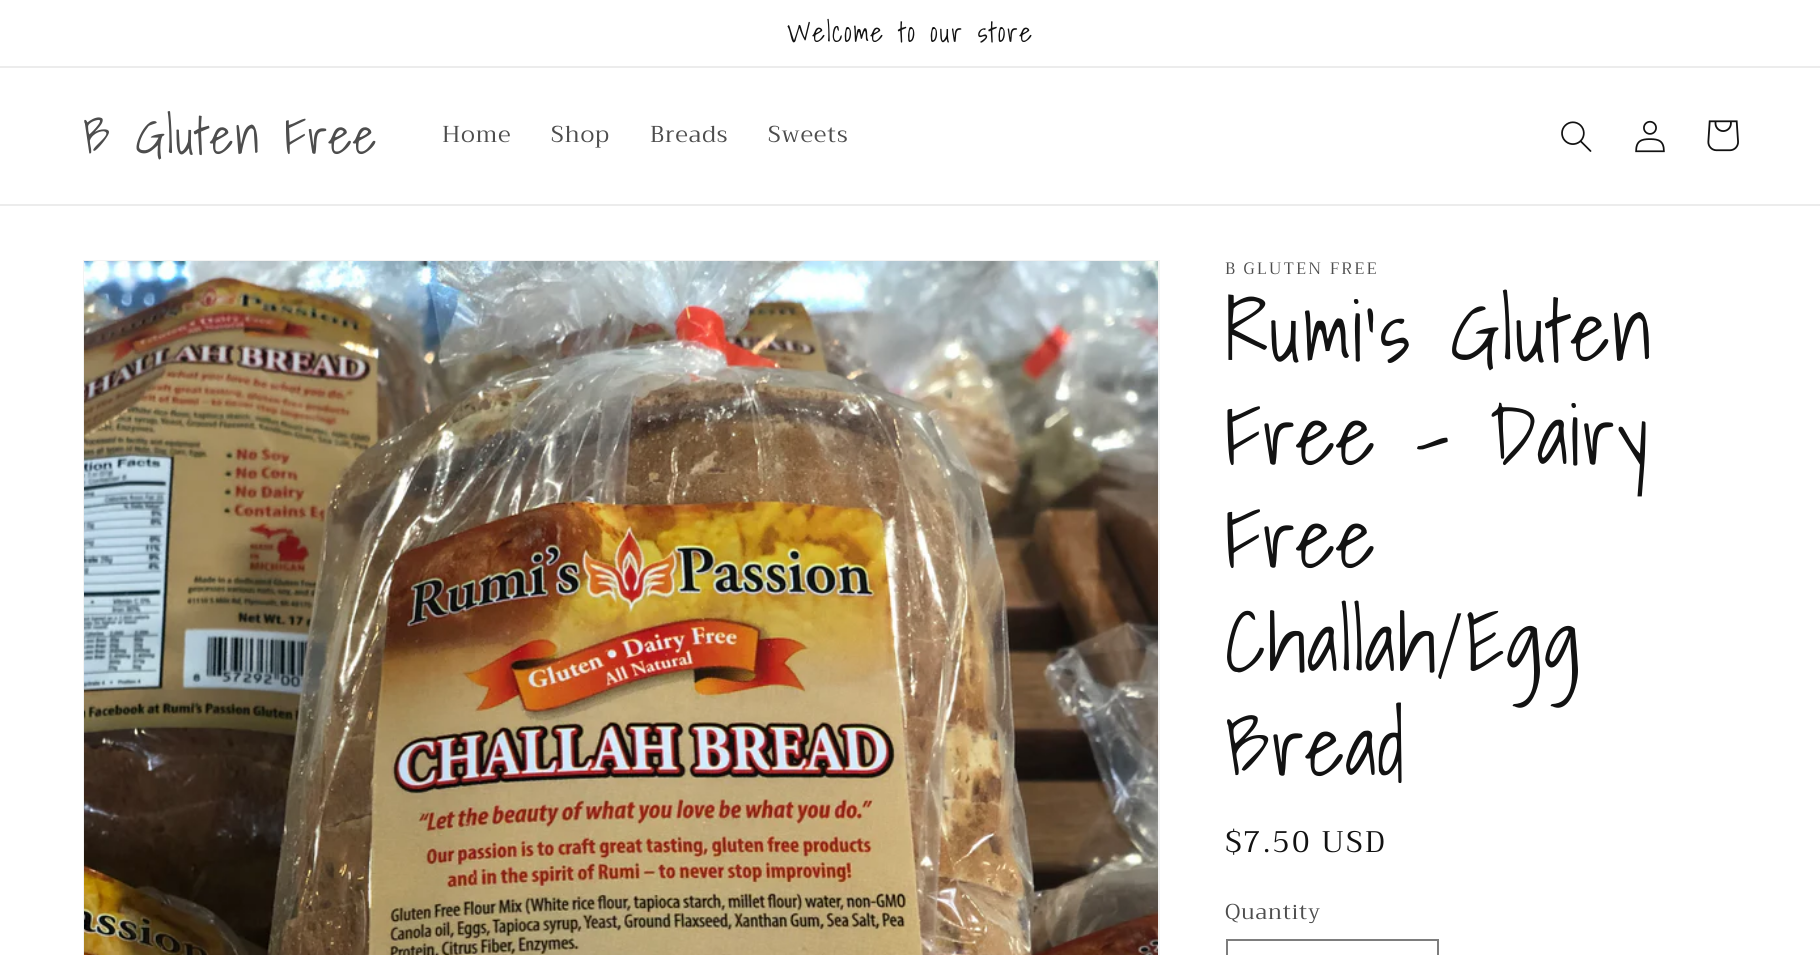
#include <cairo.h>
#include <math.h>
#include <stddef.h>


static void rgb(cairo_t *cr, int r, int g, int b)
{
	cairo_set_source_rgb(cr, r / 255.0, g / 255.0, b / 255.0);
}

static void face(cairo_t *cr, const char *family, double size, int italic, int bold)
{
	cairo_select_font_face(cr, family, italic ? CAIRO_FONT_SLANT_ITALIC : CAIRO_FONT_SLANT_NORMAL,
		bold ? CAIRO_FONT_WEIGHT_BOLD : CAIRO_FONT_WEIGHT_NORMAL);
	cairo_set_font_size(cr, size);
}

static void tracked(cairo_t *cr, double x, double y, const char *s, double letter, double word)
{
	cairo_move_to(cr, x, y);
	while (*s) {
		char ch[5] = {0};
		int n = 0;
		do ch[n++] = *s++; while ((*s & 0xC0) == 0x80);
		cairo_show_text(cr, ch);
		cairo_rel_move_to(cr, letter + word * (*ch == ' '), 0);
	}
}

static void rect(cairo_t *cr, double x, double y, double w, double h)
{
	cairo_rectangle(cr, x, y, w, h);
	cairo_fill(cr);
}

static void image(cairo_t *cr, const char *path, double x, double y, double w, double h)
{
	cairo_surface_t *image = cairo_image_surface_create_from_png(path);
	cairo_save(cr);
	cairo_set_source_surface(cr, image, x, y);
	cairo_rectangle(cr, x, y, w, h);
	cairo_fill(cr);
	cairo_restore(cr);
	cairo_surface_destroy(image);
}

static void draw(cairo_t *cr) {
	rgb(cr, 255, 255, 255);
	cairo_paint(cr);
	rgb(cr, 236, 236, 236);
	rect(cr, 0, 66, 1820, 2);
	face(cr, "Shadows Into Light", 27.25, 0, 0);
	rgb(cr, 18, 18, 18);
	tracked(cr, 787, 42, "Welcome to our store", 1.6, 0);
	rgb(cr, 236, 236, 236);
	rect(cr, 0, 204, 1820, 2);
	face(cr, "Shadows Into Light", 50.5, 0, 0);
	rgb(cr, 77, 77, 77);
	tracked(cr, 83, 154, "B Gluten Free", 1.25, 0);
	face(cr, "Trirong", 23, 0, 0);
	tracked(cr, 442, 142, "Home", 1, 0);
	tracked(cr, 551, 142, "Shop", 1, 0);
	tracked(cr, 650, 142, "Breads", 1, 0);
	tracked(cr, 768, 142, "Sweets", 1, 0);
	image(cr, "image0.png", 1561, 121, 31, 31);
	image(cr, "image1.png", 1635, 120, 30, 33);
	image(cr, "image2.png", 1707, 120, 32, 32);
	cairo_rectangle(cr, 84, 261, 1075, 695);
	rgb(cr, 243, 243, 243);
	cairo_stroke(cr);
	image(cr, "image3.png", 84, 261, 1074, 694);
	face(cr, "Trirong", 16.5, 0, 0);
	rgb(cr, 77, 77, 77);
	tracked(cr, 1225, 274, "B GLUTEN FREE", 2.1, 0);
	face(cr, "Shadows Into Light", 84, 0, 0);
	rgb(cr, 18, 18, 18);
	tracked(cr, 1225, 361, "Rumi’s Gluten", 1.25, 0);
	tracked(cr, 1225, 465, "Free - Dairy", 1.25, 0);
	tracked(cr, 1225, 568, "Free", 1.25, 0);
	tracked(cr, 1225, 672, "Challah/Egg", 1.25, 0);
	tracked(cr, 1225, 776, "Bread", 1.25, 0);
	face(cr, "Trirong", 29.75, 0, 0);
	tracked(cr, 1225, 852, "$7.50 USD", 2.1, 0);
	face(cr, "Trirong", 21.5, 0, 0);
	rgb(cr, 77, 77, 77);
	tracked(cr, 1225, 919, "Quantity", 0.75, 0);
	cairo_rectangle(cr, 1227, 940, 211, 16);
	rgb(cr, 125, 125, 125);
	cairo_stroke(cr);
}

int main(void) {
	cairo_surface_t *surface = cairo_image_surface_create(CAIRO_FORMAT_RGB24, 1820, 955);
	cairo_t *cr = cairo_create(surface);
	cairo_font_options_t *options = cairo_font_options_create();
	cairo_font_options_set_hint_metrics(options, CAIRO_HINT_METRICS_OFF);
	cairo_font_options_set_hint_style(options, CAIRO_HINT_STYLE_NONE);
	cairo_set_font_options(cr, options);
	cairo_set_miter_limit(cr, 4);
	draw(cr);
	cairo_surface_write_to_png(surface, "render.png");
	cairo_font_options_destroy(options);
	cairo_destroy(cr);
	cairo_surface_destroy(surface);
	return 0;
}
